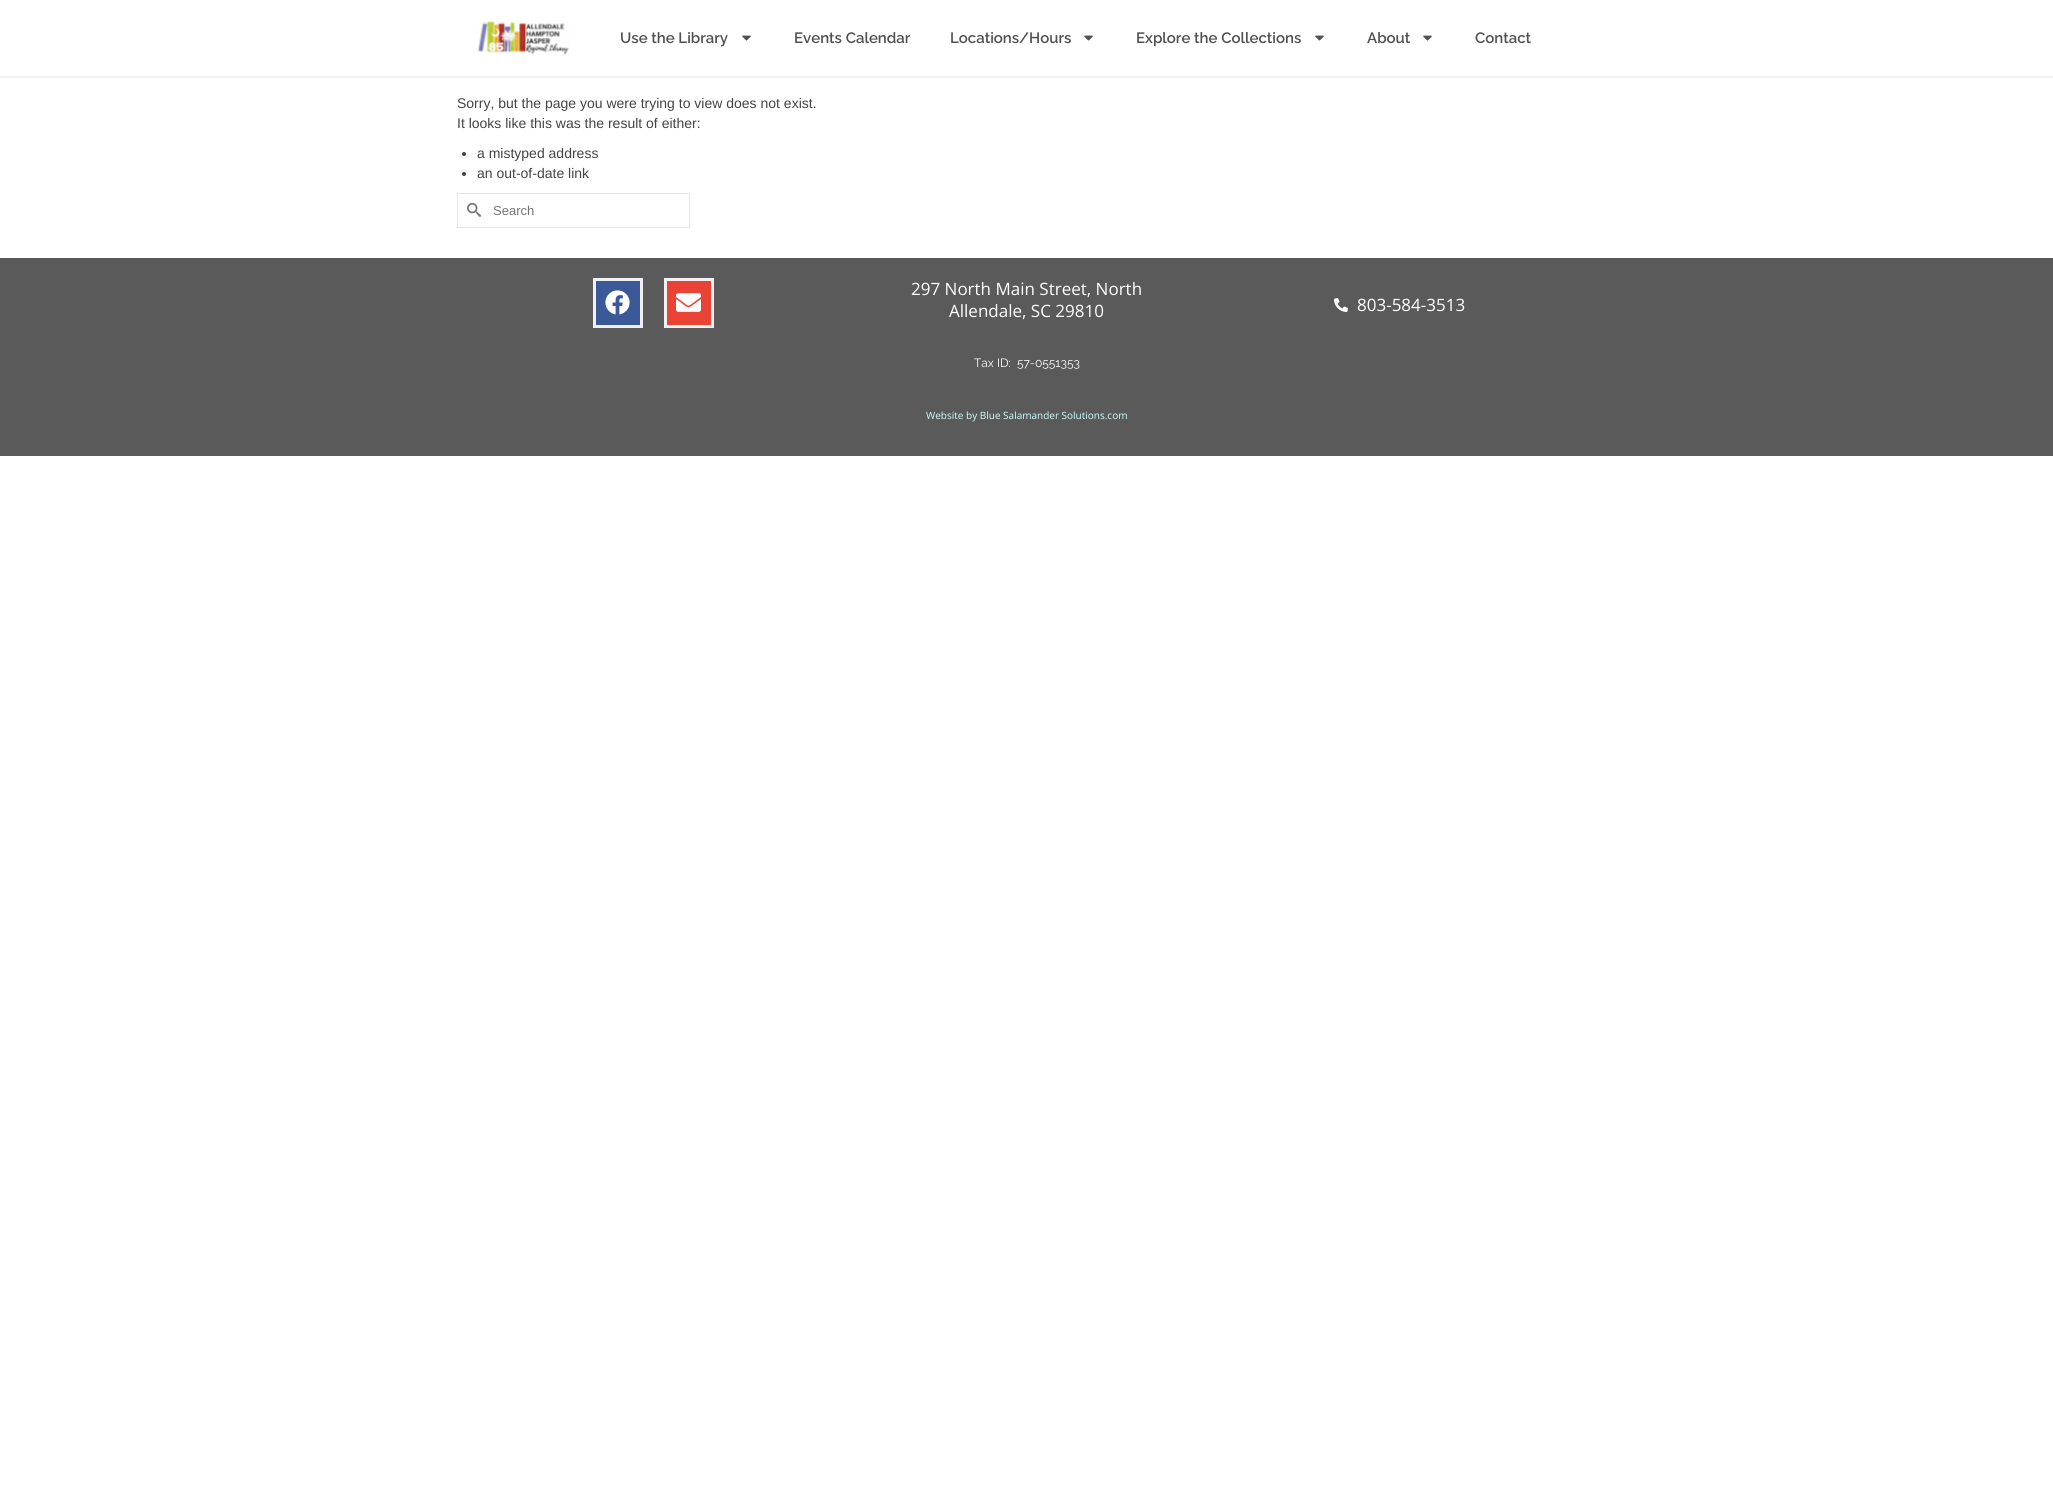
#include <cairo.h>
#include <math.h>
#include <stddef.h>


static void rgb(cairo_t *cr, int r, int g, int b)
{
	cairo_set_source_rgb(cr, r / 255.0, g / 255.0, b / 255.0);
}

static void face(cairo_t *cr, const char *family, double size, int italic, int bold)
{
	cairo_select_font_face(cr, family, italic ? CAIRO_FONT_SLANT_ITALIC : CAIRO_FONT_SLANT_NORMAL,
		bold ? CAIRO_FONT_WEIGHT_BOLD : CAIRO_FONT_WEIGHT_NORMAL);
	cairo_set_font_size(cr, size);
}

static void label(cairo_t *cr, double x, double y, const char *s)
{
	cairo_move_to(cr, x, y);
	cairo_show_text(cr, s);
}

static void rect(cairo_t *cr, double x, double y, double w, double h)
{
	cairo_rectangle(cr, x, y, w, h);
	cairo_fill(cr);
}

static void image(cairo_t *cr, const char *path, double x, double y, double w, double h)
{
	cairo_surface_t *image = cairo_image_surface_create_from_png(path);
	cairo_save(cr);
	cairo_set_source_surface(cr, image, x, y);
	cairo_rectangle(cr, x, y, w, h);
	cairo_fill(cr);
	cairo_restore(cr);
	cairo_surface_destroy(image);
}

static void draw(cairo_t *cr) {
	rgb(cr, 255, 255, 255);
	cairo_paint(cr);
	rgb(cr, 241, 241, 241);
	rect(cr, 0, 76, 2053, 2);
	image(cr, "image0.png", 477, 21, 93, 34);
	face(cr, "Raleway SemiBold", 15, 0, 0);
	rgb(cr, 80, 80, 80);
	label(cr, 620, 43, "Use the Library");
	image(cr, "image1.png", 742, 35, 9, 6);
	label(cr, 794, 43, "Events Calendar");
	label(cr, 950, 43, "Locations/Hours");
	image(cr, "image1.png", 1084, 35, 9, 6);
	label(cr, 1136, 43, "Explore the Collections");
	image(cr, "image1.png", 1315, 35, 9, 6);
	label(cr, 1367, 43, "About");
	image(cr, "image1.png", 1423, 35, 9, 6);
	label(cr, 1475, 43, "Contact");
	face(cr, "Liberation Sans", 14, 0, 0);
	rgb(cr, 68, 68, 68);
	label(cr, 457, 108, "Sorry, but the page you were trying to view does not exist.");
	label(cr, 457, 128, "It looks like this was the result of either:");
	cairo_new_path(cr);
	cairo_arc(cr, 464, 154, 2, 0, 2 * M_PI);
	cairo_fill(cr);
	label(cr, 477, 158, "a mistyped address");
	cairo_new_path(cr);
	cairo_arc(cr, 464, 174, 2, 0, 2 * M_PI);
	cairo_fill(cr);
	label(cr, 477, 178, "an out-of-date link");
	cairo_rectangle(cr, 457.5, 193.5, 232, 34);
	rgb(cr, 231, 231, 231);
	cairo_set_line_width(cr, 1);
	cairo_stroke(cr);
	image(cr, "image2.png", 467, 202, 14, 15);
	face(cr, "Liberation Sans", 13, 0, 0);
	rgb(cr, 117, 117, 117);
	label(cr, 493, 215, "Search");
	rgb(cr, 90, 90, 90);
	rect(cr, 0, 258, 2053, 198);
	rgb(cr, 59, 89, 152);
	rect(cr, 596, 281, 44, 44);
	cairo_new_path(cr);
	cairo_move_to(cr, 594.5, 279.5);
	cairo_line_to(cr, 641.5, 279.5);
	cairo_line_to(cr, 641.5, 326.5);
	cairo_line_to(cr, 594.5, 326.5);
	cairo_close_path(cr);
	rgb(cr, 241, 241, 241);
	cairo_set_line_width(cr, 3);
	cairo_stroke(cr);
	image(cr, "image3.png", 605, 290, 25, 25);
	rgb(cr, 234, 67, 53);
	rect(cr, 667, 281, 44, 44);
	cairo_new_path(cr);
	cairo_move_to(cr, 665.5, 279.5);
	cairo_line_to(cr, 712.5, 279.5);
	cairo_line_to(cr, 712.5, 326.5);
	cairo_line_to(cr, 665.5, 326.5);
	cairo_close_path(cr);
	rgb(cr, 241, 241, 241);
	cairo_stroke(cr);
	image(cr, "image4.png", 676, 293, 25, 19);
	face(cr, "Open Sans", 17, 0, 0);
	rgb(cr, 255, 255, 255);
	label(cr, 911, 295, "297 North Main Street, North");
	label(cr, 949, 317, "Allendale, SC 29810");
	image(cr, "image5.png", 1334, 298, 14, 14);
	label(cr, 1357, 311, "803-584-3513");
	face(cr, "Raleway", 12, 0, 0);
	label(cr, 974, 367, "Tax ID:  57-0551353");
	face(cr, "Open Sans", 10, 0, 0);
	rgb(cr, 204, 255, 255);
	label(cr, 926, 419, "Website by Blue Salamander Solutions.com");
}

int main(void) {
	cairo_surface_t *surface = cairo_image_surface_create(CAIRO_FORMAT_RGB24, 2053, 1496);
	cairo_t *cr = cairo_create(surface);
	cairo_font_options_t *options = cairo_font_options_create();
	cairo_font_options_set_hint_metrics(options, CAIRO_HINT_METRICS_OFF);
	cairo_font_options_set_hint_style(options, CAIRO_HINT_STYLE_NONE);
	cairo_set_font_options(cr, options);
	cairo_set_miter_limit(cr, 4);
	draw(cr);
	cairo_surface_write_to_png(surface, "render.png");
	cairo_font_options_destroy(options);
	cairo_destroy(cr);
	cairo_surface_destroy(surface);
	return 0;
}
